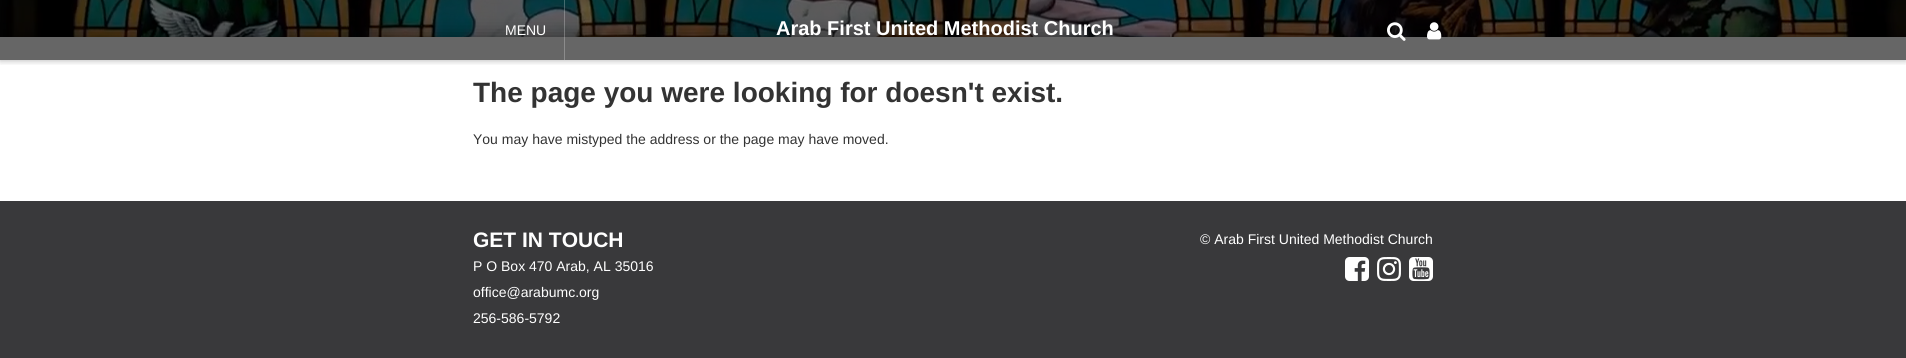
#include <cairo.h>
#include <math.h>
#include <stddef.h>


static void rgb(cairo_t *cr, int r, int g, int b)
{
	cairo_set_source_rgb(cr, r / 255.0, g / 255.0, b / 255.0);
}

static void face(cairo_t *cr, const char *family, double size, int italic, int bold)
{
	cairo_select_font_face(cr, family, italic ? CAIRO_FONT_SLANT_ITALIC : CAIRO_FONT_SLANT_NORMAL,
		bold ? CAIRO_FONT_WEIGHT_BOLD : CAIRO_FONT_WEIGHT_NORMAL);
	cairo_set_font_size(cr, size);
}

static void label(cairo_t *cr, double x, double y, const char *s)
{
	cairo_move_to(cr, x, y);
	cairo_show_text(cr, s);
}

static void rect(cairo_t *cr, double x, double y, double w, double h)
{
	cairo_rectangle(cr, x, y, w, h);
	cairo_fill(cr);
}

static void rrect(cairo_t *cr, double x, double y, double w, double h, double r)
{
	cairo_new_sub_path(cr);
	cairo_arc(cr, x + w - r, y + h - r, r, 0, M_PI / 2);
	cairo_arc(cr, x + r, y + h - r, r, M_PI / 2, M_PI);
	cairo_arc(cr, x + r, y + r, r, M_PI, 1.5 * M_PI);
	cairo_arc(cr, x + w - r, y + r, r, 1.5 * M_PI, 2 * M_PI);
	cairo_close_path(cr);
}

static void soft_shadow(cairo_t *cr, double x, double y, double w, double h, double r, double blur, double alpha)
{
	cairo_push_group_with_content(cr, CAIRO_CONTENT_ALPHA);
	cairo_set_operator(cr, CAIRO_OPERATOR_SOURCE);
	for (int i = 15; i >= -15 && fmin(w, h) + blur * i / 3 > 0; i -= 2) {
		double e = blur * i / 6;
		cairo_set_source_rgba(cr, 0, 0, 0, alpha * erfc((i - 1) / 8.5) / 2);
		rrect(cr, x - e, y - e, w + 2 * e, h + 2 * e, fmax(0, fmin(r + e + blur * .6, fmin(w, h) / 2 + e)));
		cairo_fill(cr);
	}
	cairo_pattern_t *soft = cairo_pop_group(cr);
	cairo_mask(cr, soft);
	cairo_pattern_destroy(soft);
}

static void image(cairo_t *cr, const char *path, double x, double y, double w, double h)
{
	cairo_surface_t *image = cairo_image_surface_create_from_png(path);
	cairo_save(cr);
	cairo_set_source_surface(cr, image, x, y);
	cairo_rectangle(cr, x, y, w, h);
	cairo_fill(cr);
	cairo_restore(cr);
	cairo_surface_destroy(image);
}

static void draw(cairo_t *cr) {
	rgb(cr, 255, 255, 255);
	cairo_paint(cr);
	image(cr, "image0.png", 0, 0, 1906, 37);
	rgb(cr, 0, 0, 0);
	soft_shadow(cr, 0, 37, 1906, 164, 0, 10, 0.5);
	rgb(cr, 255, 255, 255);
	rect(cr, 0, 37, 1906, 164);
	cairo_save(cr);
	cairo_rectangle(cr, 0, 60, 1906, 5);
	cairo_clip(cr);
	rgb(cr, 0, 0, 0);
	soft_shadow(cr, 0, 1, 1906, 60, 0, 3, 0.25);
	cairo_restore(cr);
	cairo_set_source_rgba(cr, 0, 0, 0, 0.6);
	rect(cr, 0, 0, 1906, 60);
	cairo_set_source_rgba(cr, 1, 1, 1, 0.25);
	rect(cr, 564, 0, 1, 60);
	face(cr, "Liberation Sans", 14, 0, 0);
	rgb(cr, 255, 255, 255);
	label(cr, 505, 35, "MENU");
	face(cr, "Liberation Sans", 20, 0, 1);
	label(cr, 776, 35, "Arab First United Methodist Church");
	image(cr, "image1.png", 1387, 22, 19, 19);
	image(cr, "image2.png", 1427, 22, 15, 18);
	face(cr, "Liberation Sans", 28, 0, 1);
	rgb(cr, 51, 51, 51);
	label(cr, 473, 102, "The page you were looking for doesn't exist.");
	face(cr, "Liberation Sans", 14, 0, 0);
	label(cr, 473, 144, "You may have mistyped the address or the page may have moved.");
	rgb(cr, 57, 57, 59);
	rect(cr, 0, 201, 1906, 157);
	face(cr, "Liberation Sans", 21, 0, 1);
	rgb(cr, 255, 255, 255);
	label(cr, 473, 247, "GET IN TOUCH");
	face(cr, "Liberation Sans", 14, 0, 0);
	label(cr, 473, 271, "P O Box 470 Arab, AL 35016");
	label(cr, 473, 297, "office@arabumc.org");
	label(cr, 473, 323, "256-586-5792");
	label(cr, 1200, 244, "© Arab First United Methodist Church");
	image(cr, "image3.png", 1345, 257, 24, 24);
	image(cr, "image4.png", 1377, 257, 24, 24);
	image(cr, "image5.png", 1409, 257, 24, 24);
}

int main(void) {
	cairo_surface_t *surface = cairo_image_surface_create(CAIRO_FORMAT_RGB24, 1906, 358);
	cairo_t *cr = cairo_create(surface);
	cairo_font_options_t *options = cairo_font_options_create();
	cairo_font_options_set_hint_metrics(options, CAIRO_HINT_METRICS_OFF);
	cairo_font_options_set_hint_style(options, CAIRO_HINT_STYLE_NONE);
	cairo_set_font_options(cr, options);
	cairo_set_miter_limit(cr, 4);
	draw(cr);
	cairo_surface_write_to_png(surface, "render.png");
	cairo_font_options_destroy(options);
	cairo_destroy(cr);
	cairo_surface_destroy(surface);
	return 0;
}
